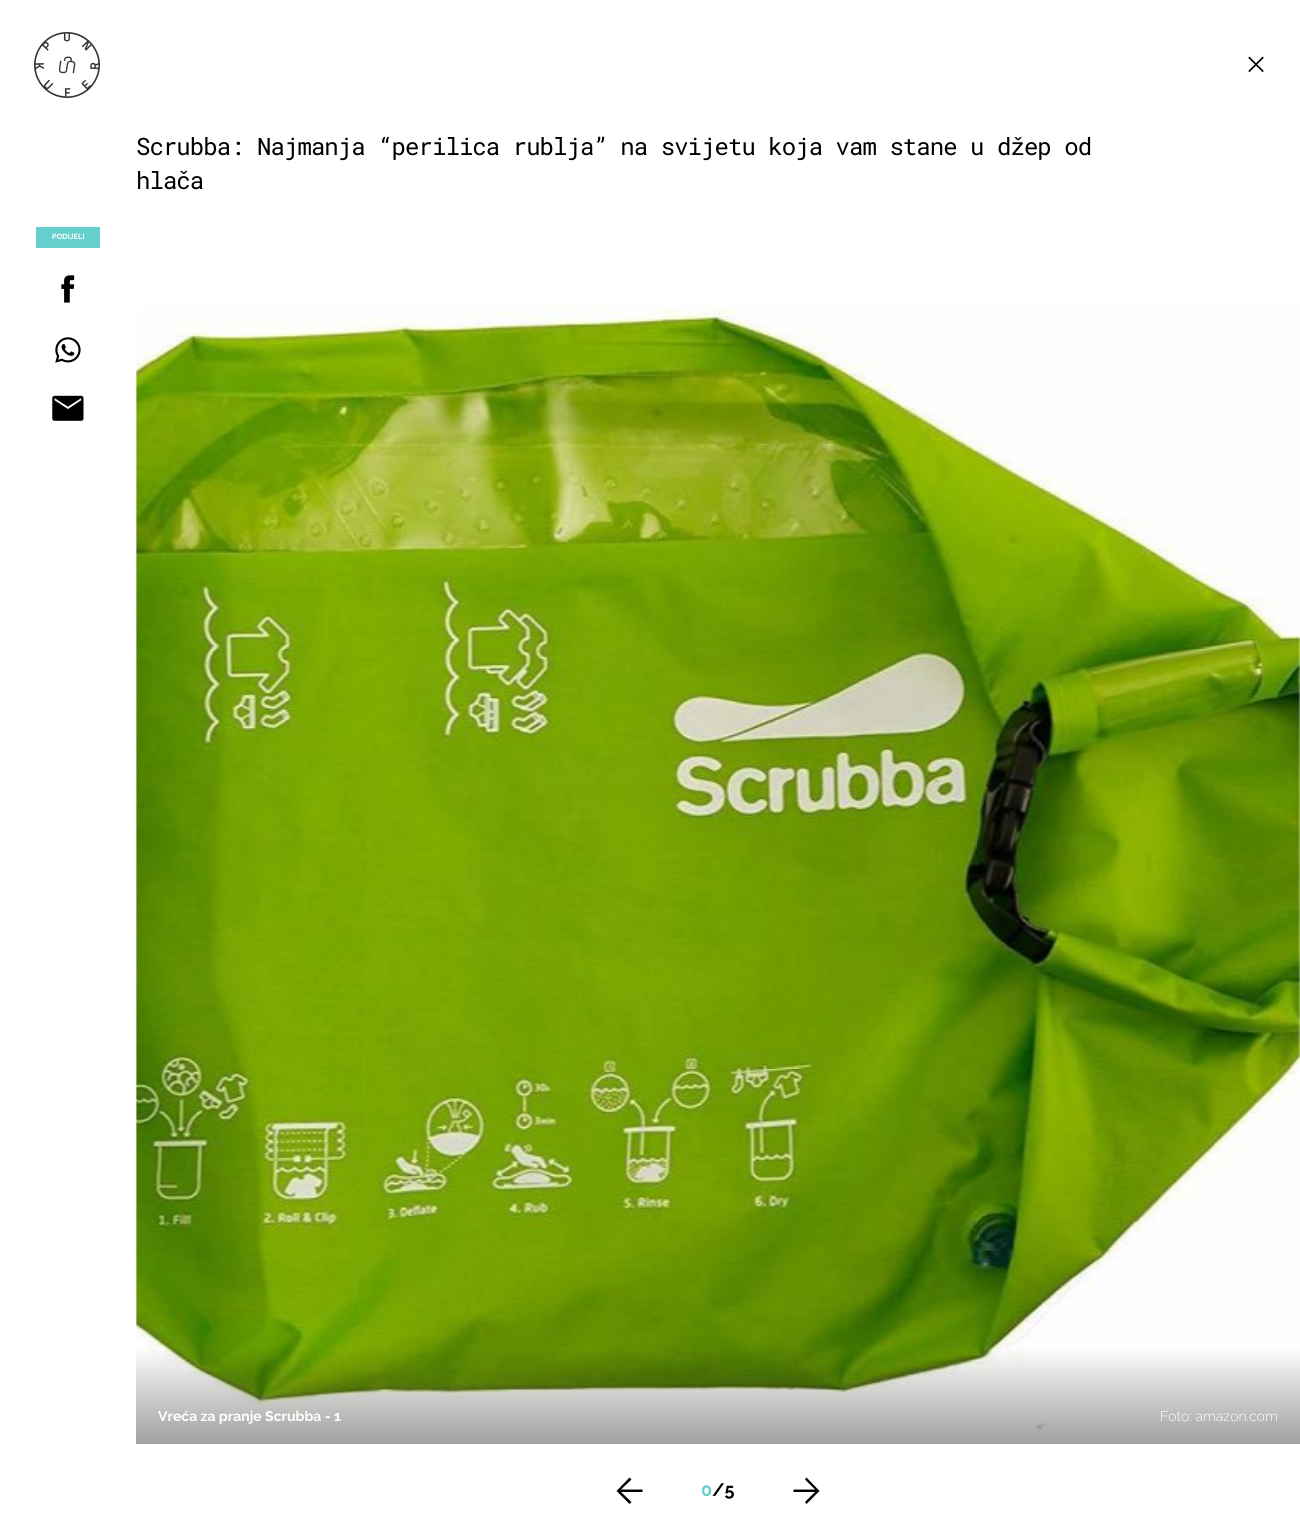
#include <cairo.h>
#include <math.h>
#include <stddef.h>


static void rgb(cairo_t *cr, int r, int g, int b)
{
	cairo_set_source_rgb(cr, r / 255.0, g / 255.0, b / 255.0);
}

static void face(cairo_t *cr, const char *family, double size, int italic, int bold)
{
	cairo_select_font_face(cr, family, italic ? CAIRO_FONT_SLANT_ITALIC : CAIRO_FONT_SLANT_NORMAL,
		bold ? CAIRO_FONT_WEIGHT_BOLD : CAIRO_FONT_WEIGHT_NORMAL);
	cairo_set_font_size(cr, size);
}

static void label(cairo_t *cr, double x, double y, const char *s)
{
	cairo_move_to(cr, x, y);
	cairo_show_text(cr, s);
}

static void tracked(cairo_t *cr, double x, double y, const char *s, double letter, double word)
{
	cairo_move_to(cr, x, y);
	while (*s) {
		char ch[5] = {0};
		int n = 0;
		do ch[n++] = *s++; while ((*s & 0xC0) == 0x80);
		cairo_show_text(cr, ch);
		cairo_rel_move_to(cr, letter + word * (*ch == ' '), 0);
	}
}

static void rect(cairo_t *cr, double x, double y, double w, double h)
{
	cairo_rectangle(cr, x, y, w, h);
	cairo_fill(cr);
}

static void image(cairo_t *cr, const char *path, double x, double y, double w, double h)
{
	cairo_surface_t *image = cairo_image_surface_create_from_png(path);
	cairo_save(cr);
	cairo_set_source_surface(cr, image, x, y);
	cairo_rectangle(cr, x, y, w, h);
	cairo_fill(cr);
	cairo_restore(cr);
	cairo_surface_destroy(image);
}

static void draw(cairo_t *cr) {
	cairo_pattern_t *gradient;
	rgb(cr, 255, 255, 255);
	cairo_paint(cr);
	image(cr, "image0.png", 34, 32, 66, 66);
	image(cr, "image1.png", 1248, 56, 16, 17);
	face(cr, "Roboto Mono", 24, 0, 0);
	rgb(cr, 0, 0, 0);
	tracked(cr, 136, 155, "Scrubba: Najmanja “perilica rublja” na svijetu koja vam stane u džep od", -0.95, 0);
	tracked(cr, 136, 189, "hlača", -0.95, 0);
	rgb(cr, 100, 207, 204);
	rect(cr, 36, 227, 64, 21);
	face(cr, "Raleway", 7.5, 0, 1);
	rgb(cr, 255, 255, 255);
	label(cr, 52, 239, "PODIJELI");
	image(cr, "image2.png", 61, 275, 14, 28);
	image(cr, "image3.png", 55, 337, 26, 26);
	image(cr, "image4.png", 52, 395, 32, 26);
	image(cr, "image5.png", 136, 305, 1164, 1126);
	gradient = cairo_pattern_create_linear(718, 1444, 718, 1346);
	cairo_pattern_add_color_stop_rgba(gradient, 0, 0.078, 0.078, 0.078, 0.4);
	cairo_pattern_add_color_stop_rgba(gradient, 1, 0.078, 0.078, 0.078, 0);
	cairo_set_source(cr, gradient);
	cairo_pattern_destroy(gradient);
	rect(cr, 136, 1351, 1164, 93);
	face(cr, "Raleway", 14, 0, 1);
	rgb(cr, 255, 255, 255);
	label(cr, 158, 1421, "Vreća za pranje Scrubba - 1");
	face(cr, "Raleway Light", 14, 0, 0);
	label(cr, 1160, 1421, "Foto: amazon.com");
	rgb(cr, 0, 0, 0);
	cairo_new_path(cr);
	cairo_move_to(cr, 629.5, 1504);
	cairo_line_to(cr, 631.5, 1502);
	cairo_line_to(cr, 621, 1492);
	cairo_line_to(cr, 642.5, 1492);
	cairo_line_to(cr, 642.5, 1489.5);
	cairo_line_to(cr, 621, 1489.5);
	cairo_line_to(cr, 631.5, 1479.5);
	cairo_line_to(cr, 629.5, 1477.5);
	cairo_line_to(cr, 616.5, 1491);
	cairo_close_path(cr);
	cairo_fill(cr);
	face(cr, "Raleway", 18, 0, 1);
	rgb(cr, 100, 207, 204);
	label(cr, 701, 1496, "0");
	rgb(cr, 0, 0, 0);
	label(cr, 712, 1496, "/5");
	cairo_new_path(cr);
	cairo_move_to(cr, 806.5, 1504);
	cairo_line_to(cr, 805, 1502);
	cairo_line_to(cr, 815, 1492);
	cairo_line_to(cr, 793.5, 1492);
	cairo_line_to(cr, 793.5, 1489.5);
	cairo_line_to(cr, 815, 1489.5);
	cairo_line_to(cr, 805, 1479.5);
	cairo_line_to(cr, 806.5, 1477.5);
	cairo_line_to(cr, 819.5, 1491);
	cairo_close_path(cr);
	cairo_fill(cr);
}

int main(void) {
	cairo_surface_t *surface = cairo_image_surface_create(CAIRO_FORMAT_RGB24, 1300, 1517);
	cairo_t *cr = cairo_create(surface);
	cairo_font_options_t *options = cairo_font_options_create();
	cairo_font_options_set_hint_metrics(options, CAIRO_HINT_METRICS_OFF);
	cairo_font_options_set_hint_style(options, CAIRO_HINT_STYLE_NONE);
	cairo_set_font_options(cr, options);
	cairo_set_miter_limit(cr, 4);
	draw(cr);
	cairo_surface_write_to_png(surface, "render.png");
	cairo_font_options_destroy(options);
	cairo_destroy(cr);
	cairo_surface_destroy(surface);
	return 0;
}
